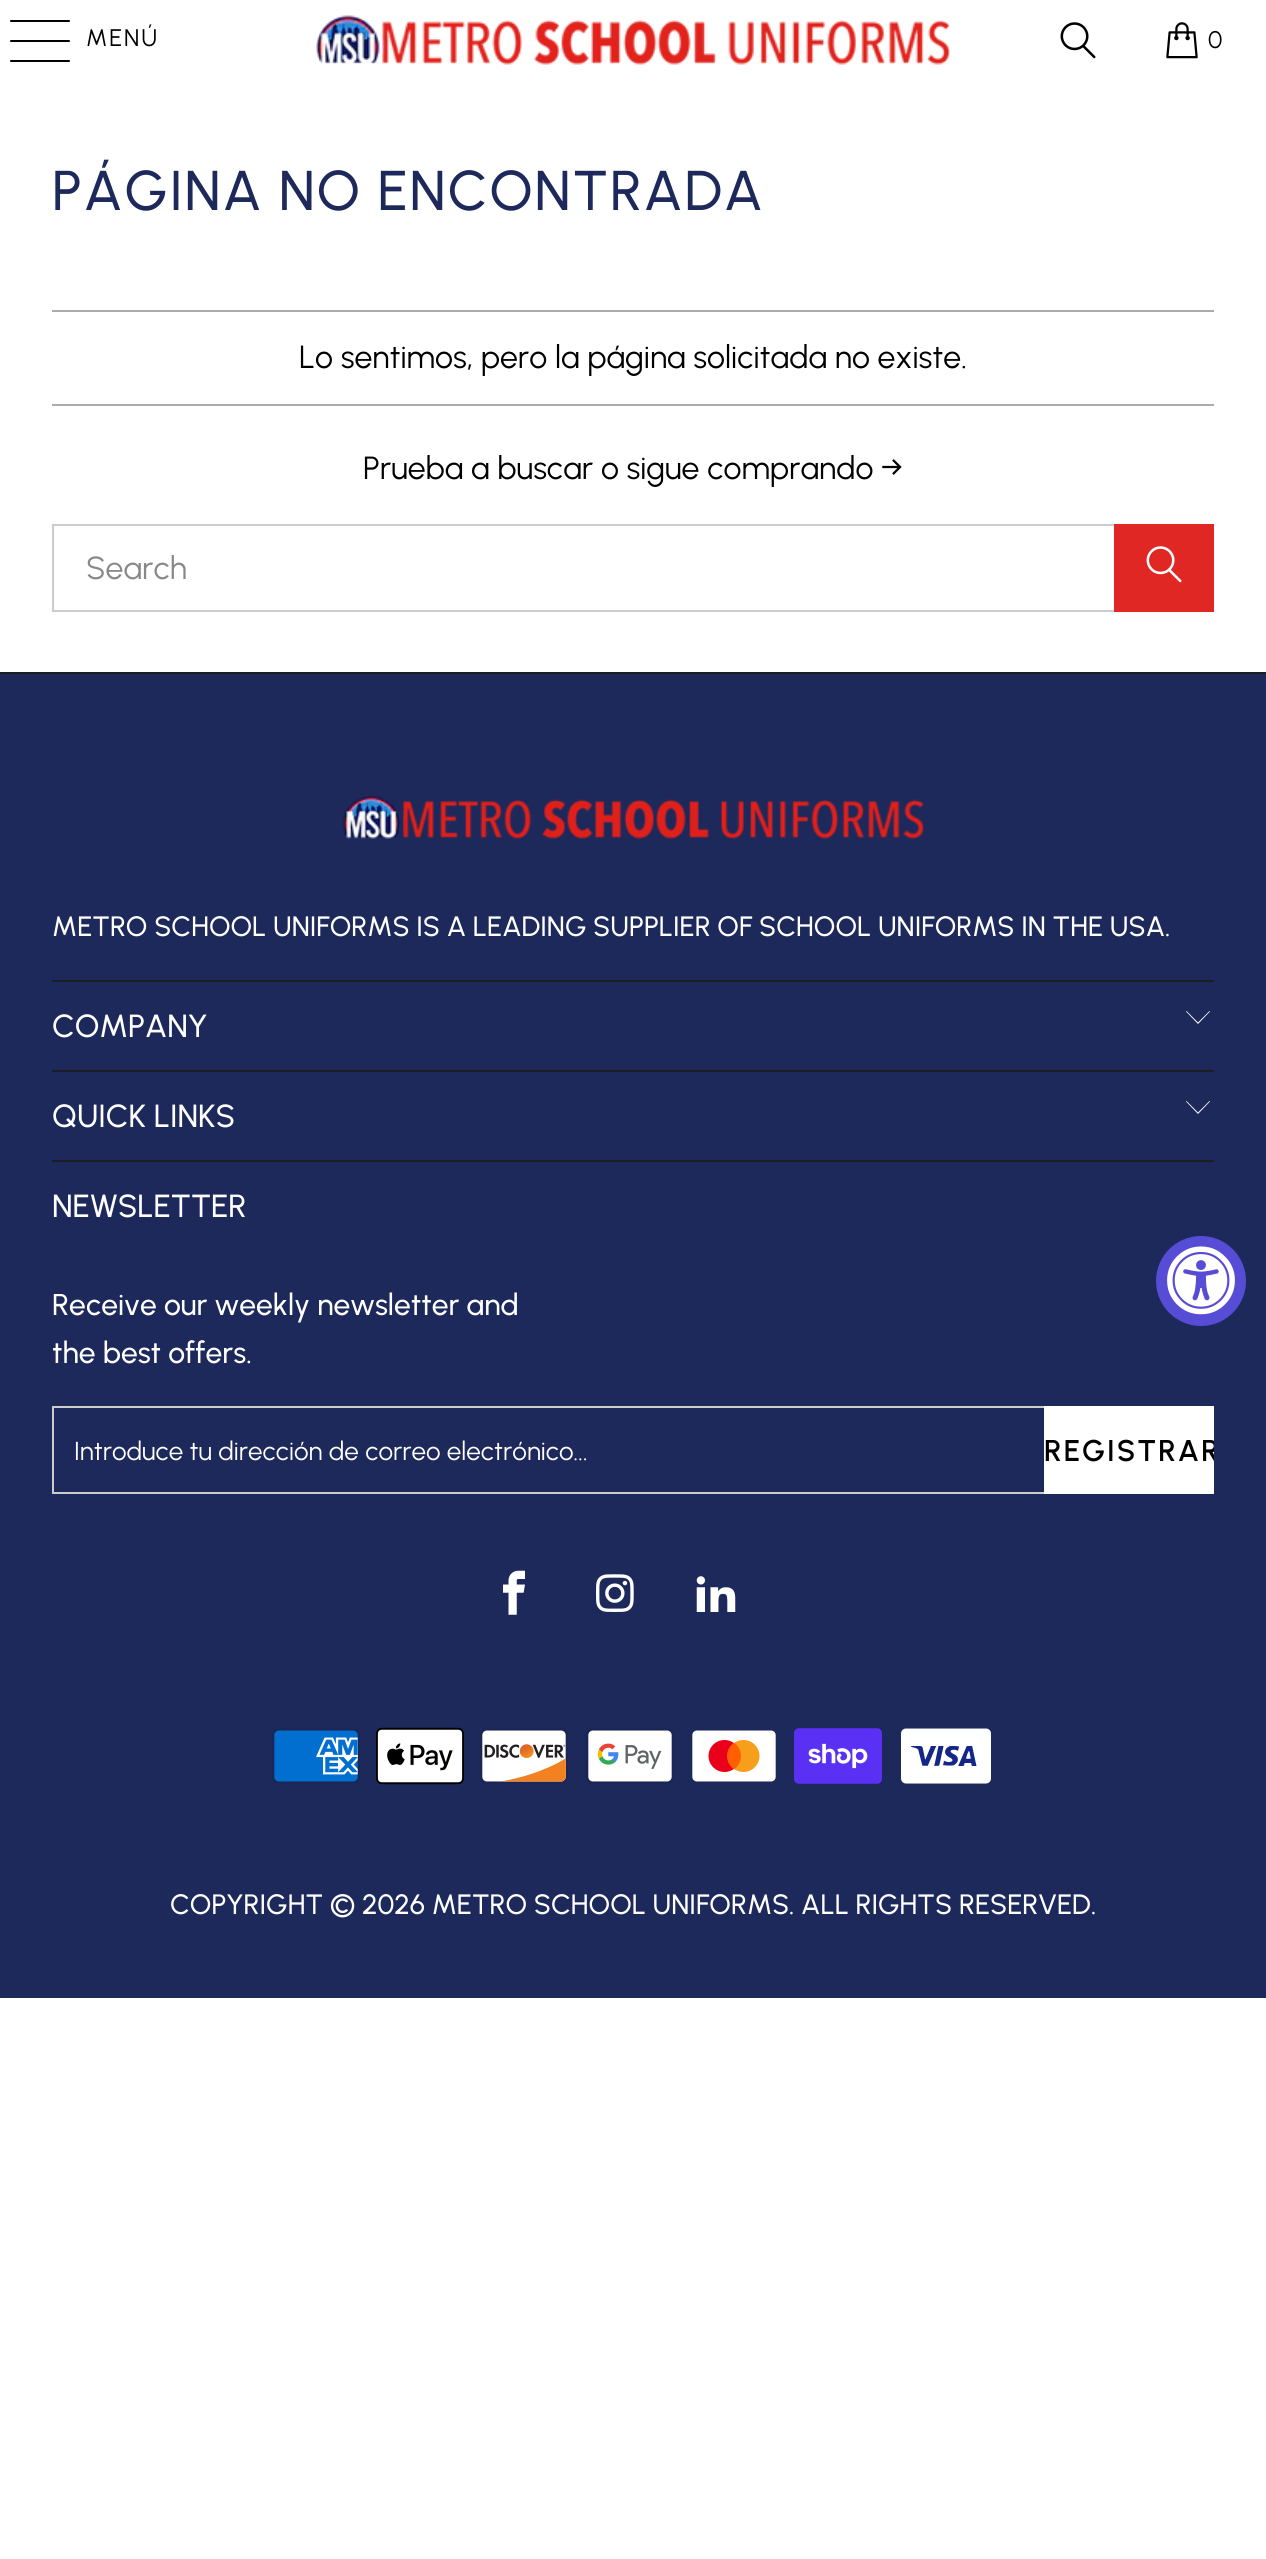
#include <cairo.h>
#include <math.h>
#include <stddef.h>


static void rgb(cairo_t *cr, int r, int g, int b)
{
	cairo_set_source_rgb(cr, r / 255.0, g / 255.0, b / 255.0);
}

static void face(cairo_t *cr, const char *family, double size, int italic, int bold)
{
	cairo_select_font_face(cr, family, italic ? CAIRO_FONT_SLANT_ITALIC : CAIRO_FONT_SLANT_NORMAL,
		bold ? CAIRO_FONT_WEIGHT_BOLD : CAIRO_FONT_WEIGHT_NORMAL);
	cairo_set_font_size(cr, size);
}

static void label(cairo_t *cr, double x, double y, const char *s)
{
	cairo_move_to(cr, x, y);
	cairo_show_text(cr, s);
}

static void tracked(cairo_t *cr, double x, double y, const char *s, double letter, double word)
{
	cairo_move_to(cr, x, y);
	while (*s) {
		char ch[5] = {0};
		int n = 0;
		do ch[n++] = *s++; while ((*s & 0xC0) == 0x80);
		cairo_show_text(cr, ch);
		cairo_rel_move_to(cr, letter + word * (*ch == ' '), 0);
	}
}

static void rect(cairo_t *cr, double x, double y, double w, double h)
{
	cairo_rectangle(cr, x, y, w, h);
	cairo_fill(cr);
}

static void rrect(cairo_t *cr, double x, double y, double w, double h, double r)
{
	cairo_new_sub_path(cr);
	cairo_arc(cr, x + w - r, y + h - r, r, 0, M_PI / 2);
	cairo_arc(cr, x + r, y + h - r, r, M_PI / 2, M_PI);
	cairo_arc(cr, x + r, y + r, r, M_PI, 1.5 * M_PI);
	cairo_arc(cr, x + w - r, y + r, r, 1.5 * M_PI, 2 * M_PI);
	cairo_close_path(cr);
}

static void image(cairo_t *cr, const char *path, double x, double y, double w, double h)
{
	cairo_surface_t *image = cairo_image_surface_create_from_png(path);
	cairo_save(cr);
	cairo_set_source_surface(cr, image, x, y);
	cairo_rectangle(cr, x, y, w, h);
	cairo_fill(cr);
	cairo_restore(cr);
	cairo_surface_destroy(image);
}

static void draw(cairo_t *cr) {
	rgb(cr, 255, 255, 255);
	cairo_paint(cr);
	rgb(cr, 0, 0, 0);
	rrect(cr, 10, 20, 60, 2, 1);
	cairo_fill(cr);
	rrect(cr, 10, 40, 60, 2, 1);
	cairo_fill(cr);
	rrect(cr, 10, 60, 60, 2, 1);
	cairo_fill(cr);
	face(cr, "Urbanist", 24, 0, 0);
	tracked(cr, 86, 46, "MENÚ", 2, 0);
	image(cr, "image0.png", 316, 15, 634, 50);
	image(cr, "image1.png", 1060, 22, 36, 37);
	image(cr, "image2.png", 1166, 22, 32, 37);
	tracked(cr, 1208, 48, "0", 2, 0);
	face(cr, "Urbanist Medium", 56, 0, 0);
	rgb(cr, 29, 41, 91);
	tracked(cr, 52, 210, "PÁGINA NO ENCONTRADA", 2, 0);
	rgb(cr, 170, 170, 170);
	rect(cr, 52, 310, 1162, 2);
	rect(cr, 52, 404, 1162, 2);
	face(cr, "Urbanist", 32, 0, 0);
	rgb(cr, 0, 0, 0);
	label(cr, 299, 368, "Lo sentimos, pero la página solicitada no existe.");
	label(cr, 363, 479, "Prueba a buscar o sigue comprando →");
	cairo_rectangle(cr, 53, 525, 1160, 86);
	rgb(cr, 204, 204, 204);
	cairo_stroke(cr);
	rgb(cr, 136, 136, 136);
	label(cr, 86, 579, "Search");
	rgb(cr, 224, 39, 36);
	rect(cr, 1114, 524, 100, 88);
	image(cr, "image3.png", 1146, 546, 36, 37);
	rgb(cr, 29, 41, 91);
	rect(cr, 0, 674, 1266, 1324);
	rgb(cr, 27, 31, 35);
	rect(cr, 0, 672, 1266, 2);
	image(cr, "image4.png", 342, 795, 582, 44);
	face(cr, "Urbanist Medium", 28, 0, 0);
	rgb(cr, 255, 255, 255);
	label(cr, 52, 936, "METRO SCHOOL UNIFORMS IS A LEADING SUPPLIER OF SCHOOL UNIFORMS IN THE USA.");
	rgb(cr, 27, 31, 35);
	rect(cr, 52, 980, 1162, 2);
	face(cr, "Urbanist Medium", 32, 0, 0);
	rgb(cr, 255, 255, 255);
	label(cr, 52, 1037, "COMPANY");
	cairo_new_path(cr);
	cairo_move_to(cr, 1198, 1024);
	cairo_line_to(cr, 1186, 1011.5);
	cairo_line_to(cr, 1186.5, 1011);
	cairo_line_to(cr, 1198, 1022.5);
	cairo_line_to(cr, 1209.5, 1011);
	cairo_line_to(cr, 1210, 1011.5);
	cairo_close_path(cr);
	cairo_fill(cr);
	rgb(cr, 27, 31, 35);
	rect(cr, 52, 1070, 1162, 2);
	rgb(cr, 255, 255, 255);
	label(cr, 52, 1127, "QUICK LINKS");
	cairo_new_path(cr);
	cairo_move_to(cr, 1198, 1114);
	cairo_line_to(cr, 1186, 1101.5);
	cairo_line_to(cr, 1186.5, 1101);
	cairo_line_to(cr, 1198, 1112.5);
	cairo_line_to(cr, 1209.5, 1101);
	cairo_line_to(cr, 1210, 1101.5);
	cairo_close_path(cr);
	cairo_fill(cr);
	rgb(cr, 27, 31, 35);
	rect(cr, 52, 1160, 1162, 2);
	rgb(cr, 255, 255, 255);
	label(cr, 52, 1217, "NEWSLETTER");
	face(cr, "Urbanist Medium", 30, 0, 0);
	label(cr, 52, 1315, "Receive our weekly newsletter and");
	label(cr, 52, 1363, "the best offers.");
	cairo_rectangle(cr, 53, 1407, 1160, 86);
	rgb(cr, 204, 204, 204);
	cairo_stroke(cr);
	face(cr, "Urbanist", 26, 0, 0);
	rgb(cr, 255, 255, 255);
	label(cr, 74, 1460, "Introduce tu dirección de correo electrónico...");
	rect(cr, 1044, 1406, 170, 88);
	cairo_save(cr);
	cairo_rectangle(cr, 1044, 1406, 170, 88);
	cairo_clip(cr);
	face(cr, "Urbanist SemiBold", 30, 0, 0);
	rgb(cr, 0, 0, 0);
	tracked(cr, 1044, 1461, "REGISTRAR", 2, 0);
	cairo_restore(cr);
	image(cr, "image5.png", 503, 1570, 22, 45);
	image(cr, "image6.png", 596, 1574, 38, 38);
	image(cr, "image7.png", 696, 1576, 40, 36);
	image(cr, "image8.png", 272, 1728, 88, 56);
	image(cr, "image9.png", 376, 1727, 88, 58);
	image(cr, "image10.png", 480, 1728, 88, 56);
	image(cr, "image11.png", 586, 1728, 88, 56);
	image(cr, "image12.png", 692, 1730, 84, 52);
	image(cr, "image13.png", 794, 1728, 88, 56);
	image(cr, "image14.png", 901, 1728, 90, 56);
	face(cr, "Urbanist Medium", 28, 0, 0);
	label(cr, 170, 1914, "COPYRIGHT © 2026 METRO SCHOOL UNIFORMS");
	label(cr, 789, 1914, ". ALL RIGHTS RESERVED.");
	rgb(cr, 87, 76, 213);
	cairo_new_path(cr);
	cairo_arc(cr, 1201, 1281, 45, 0, 2 * M_PI);
	cairo_fill(cr);
	image(cr, "image15.png", 1167, 1246, 68, 69);
}

int main(void) {
	cairo_surface_t *surface = cairo_image_surface_create(CAIRO_FORMAT_RGB24, 1266, 2559);
	cairo_t *cr = cairo_create(surface);
	cairo_font_options_t *options = cairo_font_options_create();
	cairo_font_options_set_hint_metrics(options, CAIRO_HINT_METRICS_OFF);
	cairo_font_options_set_hint_style(options, CAIRO_HINT_STYLE_NONE);
	cairo_set_font_options(cr, options);
	cairo_set_miter_limit(cr, 4);
	draw(cr);
	cairo_surface_write_to_png(surface, "render.png");
	cairo_font_options_destroy(options);
	cairo_destroy(cr);
	cairo_surface_destroy(surface);
	return 0;
}
